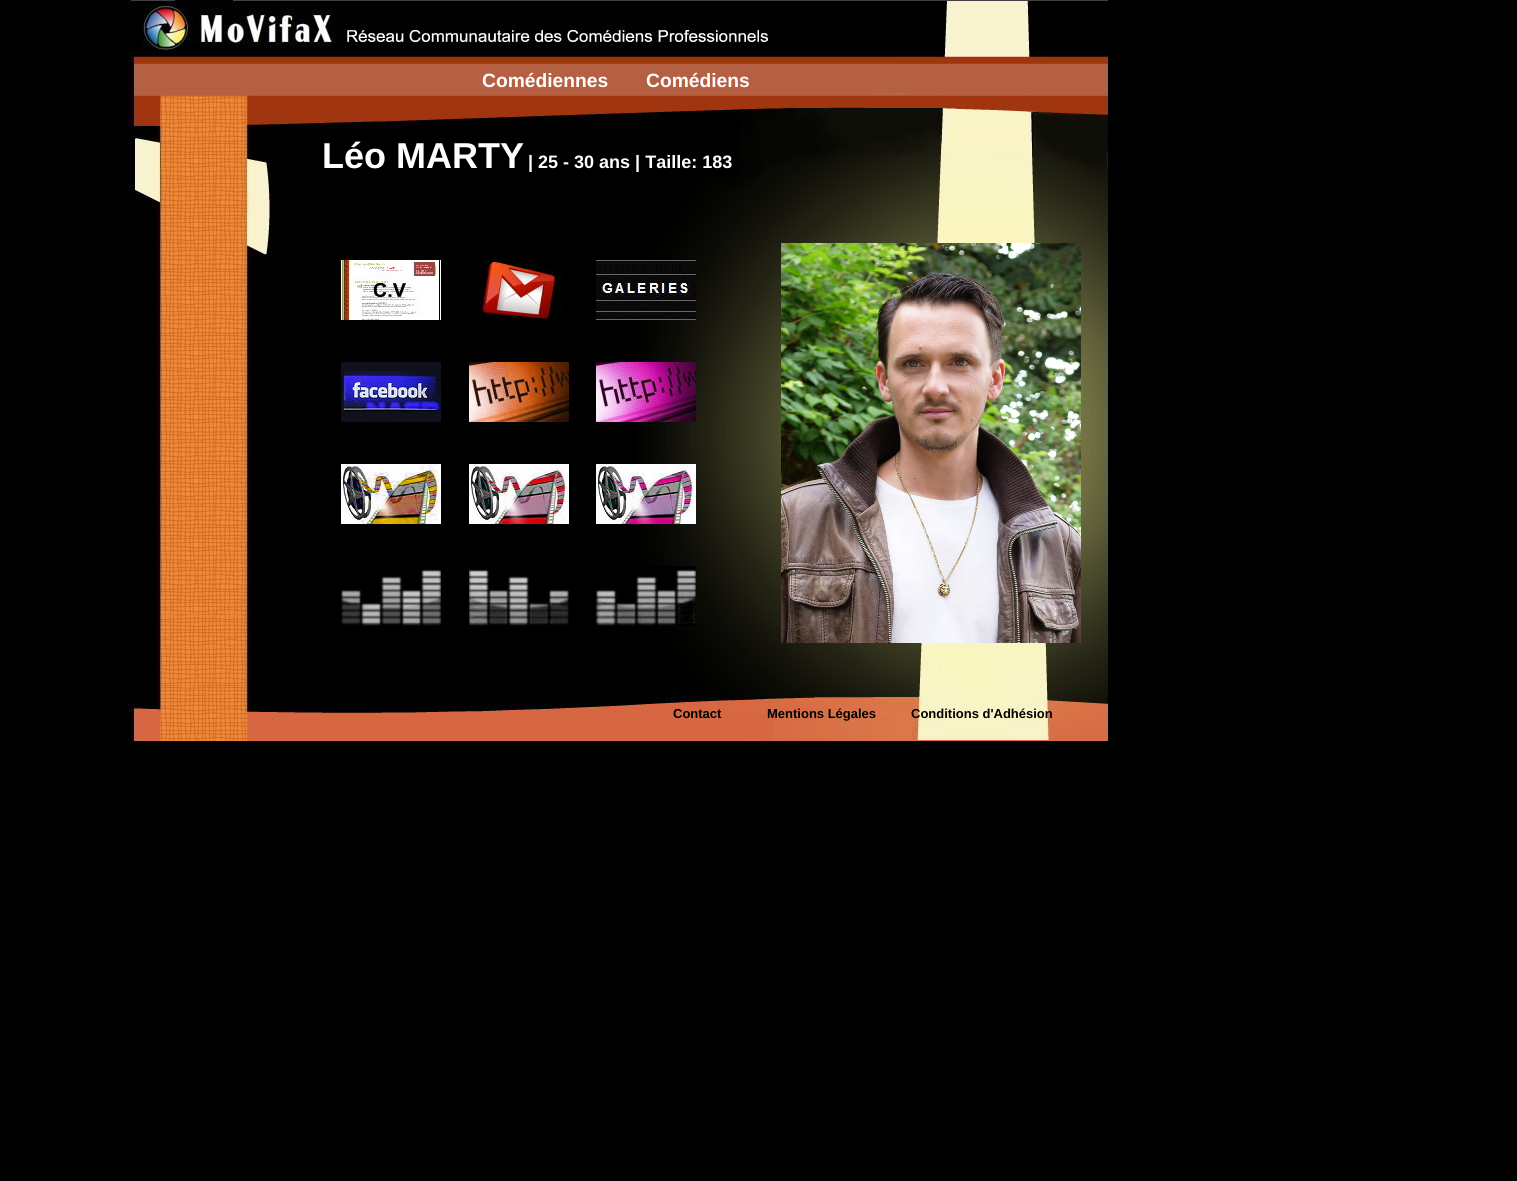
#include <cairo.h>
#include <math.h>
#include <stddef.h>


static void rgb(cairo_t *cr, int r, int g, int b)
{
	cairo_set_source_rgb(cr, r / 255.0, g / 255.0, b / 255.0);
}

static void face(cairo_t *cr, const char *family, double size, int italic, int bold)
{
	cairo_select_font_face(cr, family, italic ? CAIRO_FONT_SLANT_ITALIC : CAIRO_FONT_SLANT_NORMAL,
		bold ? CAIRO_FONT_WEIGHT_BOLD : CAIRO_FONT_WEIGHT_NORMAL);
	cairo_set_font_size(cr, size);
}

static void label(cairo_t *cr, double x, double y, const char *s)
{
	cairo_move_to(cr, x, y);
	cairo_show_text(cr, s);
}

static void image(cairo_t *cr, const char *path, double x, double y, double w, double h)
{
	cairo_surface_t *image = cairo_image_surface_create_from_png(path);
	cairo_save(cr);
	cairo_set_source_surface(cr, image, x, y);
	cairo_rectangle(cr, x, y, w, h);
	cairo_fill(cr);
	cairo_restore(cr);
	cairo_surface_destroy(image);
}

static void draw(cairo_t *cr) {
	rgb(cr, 0, 0, 0);
	cairo_paint(cr);
	image(cr, "image0.png", 127, 0, 981, 741);
	face(cr, "Liberation Sans", 19.25, 0, 1);
	rgb(cr, 255, 255, 255);
	label(cr, 482, 87, "Comédiennes");
	label(cr, 646, 87, "Comédiens");
	face(cr, "Liberation Sans", 36, 0, 1);
	label(cr, 322, 168, "Léo MARTY");
	face(cr, "Liberation Sans", 18, 0, 1);
	label(cr, 528, 168, "| 25 - 30 ans | Taille: 183");
	image(cr, "image1.png", 341, 260, 100, 60);
	image(cr, "image2.png", 469, 260, 96, 60);
	image(cr, "image3.png", 596, 260, 100, 60);
	image(cr, "image4.png", 341, 362, 100, 60);
	image(cr, "image5.png", 469, 362, 100, 60);
	image(cr, "image6.png", 596, 362, 100, 60);
	image(cr, "image7.png", 341, 464, 100, 60);
	image(cr, "image8.png", 469, 464, 100, 60);
	image(cr, "image9.png", 596, 464, 100, 60);
	image(cr, "image10.png", 341, 569, 100, 57);
	image(cr, "image11.png", 469, 569, 100, 57);
	image(cr, "image12.png", 596, 566, 100, 60);
	image(cr, "image13.png", 781, 243, 300, 400);
	face(cr, "Liberation Sans", 13, 0, 1);
	rgb(cr, 0, 0, 0);
	label(cr, 673, 718, "Contact");
	label(cr, 767, 718, "Mentions Légales");
	label(cr, 911, 718, "Conditions d'Adhésion");
}

int main(void) {
	cairo_surface_t *surface = cairo_image_surface_create(CAIRO_FORMAT_RGB24, 1517, 1181);
	cairo_t *cr = cairo_create(surface);
	cairo_font_options_t *options = cairo_font_options_create();
	cairo_font_options_set_hint_metrics(options, CAIRO_HINT_METRICS_OFF);
	cairo_font_options_set_hint_style(options, CAIRO_HINT_STYLE_NONE);
	cairo_set_font_options(cr, options);
	cairo_set_miter_limit(cr, 4);
	draw(cr);
	cairo_surface_write_to_png(surface, "render.png");
	cairo_font_options_destroy(options);
	cairo_destroy(cr);
	cairo_surface_destroy(surface);
	return 0;
}
